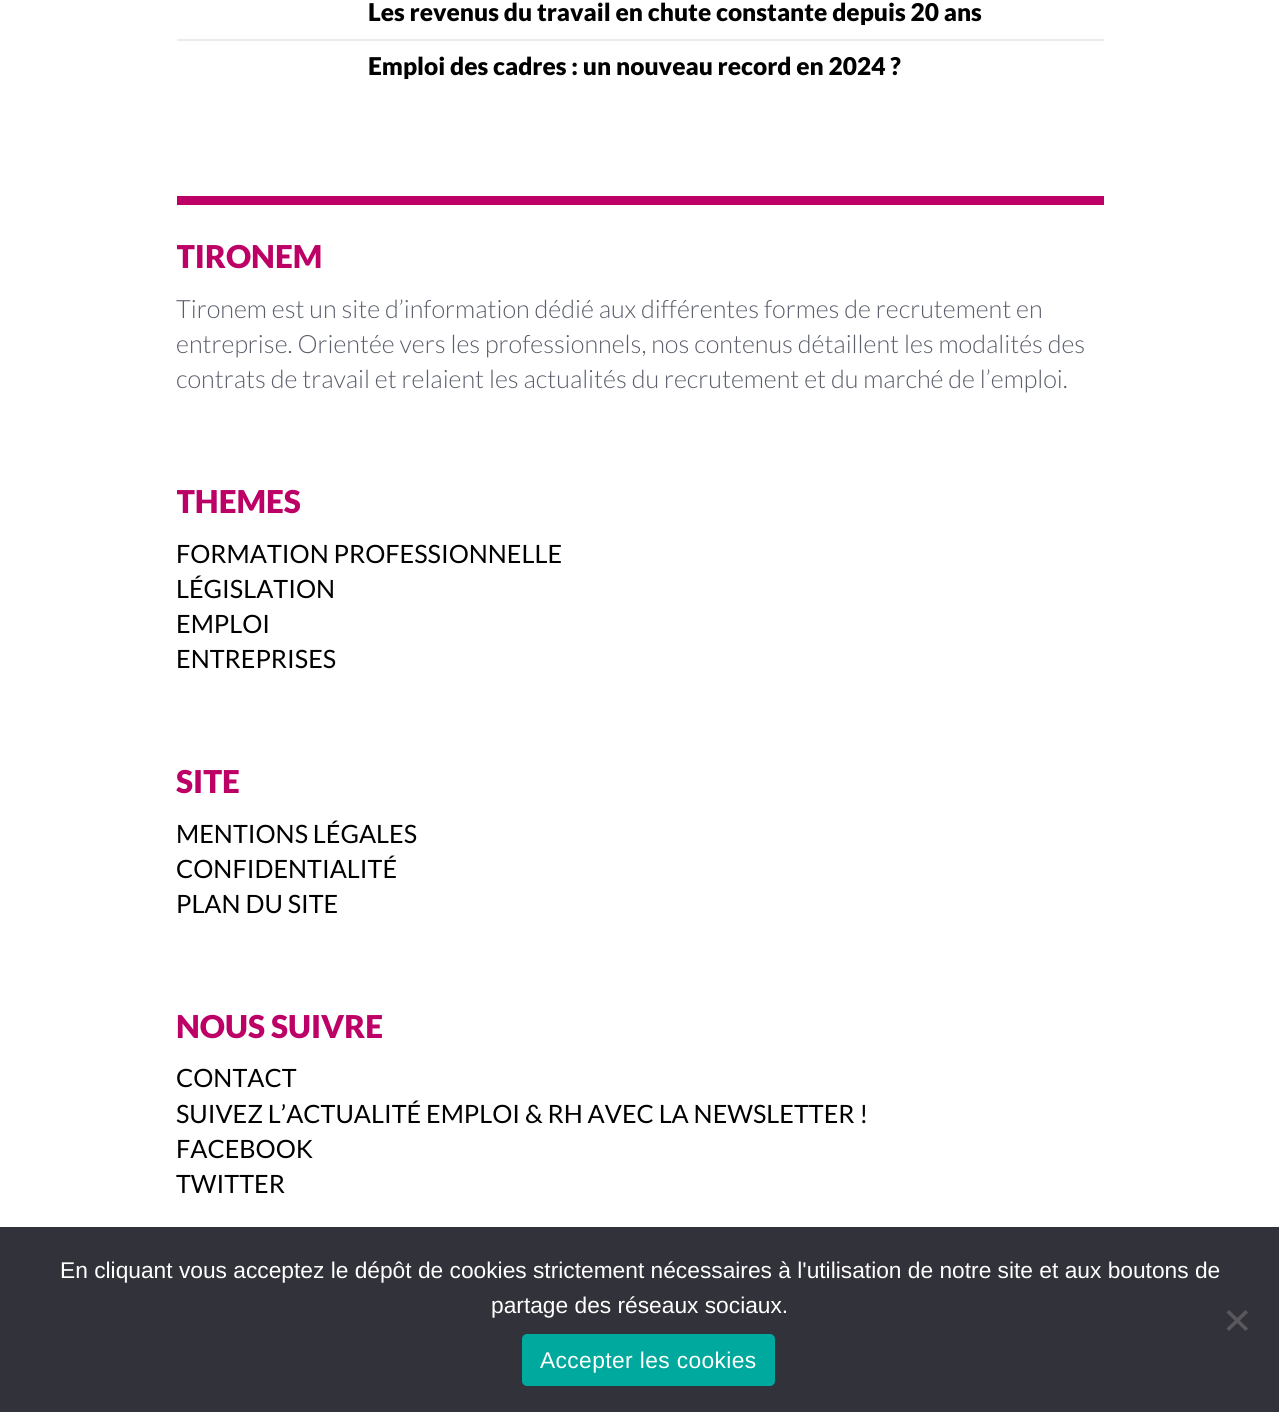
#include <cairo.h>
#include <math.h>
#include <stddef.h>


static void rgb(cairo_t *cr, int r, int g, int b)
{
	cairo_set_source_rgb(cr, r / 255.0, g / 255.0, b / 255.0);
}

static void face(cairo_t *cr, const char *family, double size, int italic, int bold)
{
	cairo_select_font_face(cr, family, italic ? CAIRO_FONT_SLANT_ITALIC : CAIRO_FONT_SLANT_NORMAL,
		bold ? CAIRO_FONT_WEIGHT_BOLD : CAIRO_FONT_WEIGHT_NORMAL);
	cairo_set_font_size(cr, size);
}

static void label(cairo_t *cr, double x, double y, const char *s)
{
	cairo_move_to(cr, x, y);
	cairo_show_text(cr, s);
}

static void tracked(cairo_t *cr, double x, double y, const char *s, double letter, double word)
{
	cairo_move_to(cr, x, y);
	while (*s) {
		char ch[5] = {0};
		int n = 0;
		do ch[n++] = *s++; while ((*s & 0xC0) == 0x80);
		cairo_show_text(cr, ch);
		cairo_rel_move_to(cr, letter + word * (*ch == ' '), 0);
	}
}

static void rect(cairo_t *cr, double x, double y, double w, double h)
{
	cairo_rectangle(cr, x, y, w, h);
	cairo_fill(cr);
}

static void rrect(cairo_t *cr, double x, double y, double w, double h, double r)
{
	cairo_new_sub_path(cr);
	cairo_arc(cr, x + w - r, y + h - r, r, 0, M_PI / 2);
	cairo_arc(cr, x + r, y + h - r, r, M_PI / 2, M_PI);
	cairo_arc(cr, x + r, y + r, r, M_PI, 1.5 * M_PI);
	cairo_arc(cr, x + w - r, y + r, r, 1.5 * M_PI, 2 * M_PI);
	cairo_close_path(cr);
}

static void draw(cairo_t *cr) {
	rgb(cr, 255, 255, 255);
	cairo_paint(cr);
	face(cr, "Lato Black", 24.5, 0, 0);
	rgb(cr, 0, 0, 0);
	label(cr, 368, 21, "Les revenus du travail en chute constante depuis 20 ans");
	rgb(cr, 235, 235, 235);
	rect(cr, 177, 39, 927, 2);
	rgb(cr, 0, 0, 0);
	label(cr, 368, 75, "Emploi des cadres : un nouveau record en 2024 ?");
	rgb(cr, 189, 0, 102);
	rect(cr, 177, 196, 927, 9);
	cairo_save(cr);
	cairo_rectangle(cr, 177, 205, 927, 192);
	cairo_clip(cr);
	face(cr, "Lato Black", 31.5, 0, 0);
	label(cr, 176, 268, "TIRONEM");
	cairo_restore(cr);
	face(cr, "Lato Light", 25.2, 0, 0);
	rgb(cr, 90, 94, 107);
	label(cr, 176, 318, "Tironem est un site d’information dédié aux différentes formes de recrutement en");
	label(cr, 176, 353, "entreprise. Orientée vers les professionnels, nos contenus détaillent les modalités des");
	label(cr, 176, 388, "contrats de travail et relaient les actualités du recrutement et du marché de l’emploi.");
	cairo_save(cr);
	cairo_rectangle(cr, 177, 450, 927, 227);
	cairo_clip(cr);
	face(cr, "Lato Black", 31.5, 0, 0);
	rgb(cr, 189, 0, 102);
	label(cr, 176, 513, "THEMES");
	cairo_restore(cr);
	face(cr, "Lato", 25.2, 0, 0);
	rgb(cr, 0, 0, 0);
	label(cr, 176, 563, "FORMATION PROFESSIONNELLE");
	label(cr, 176, 598, "LÉGISLATION");
	label(cr, 176, 633, "EMPLOI");
	label(cr, 176, 668, "ENTREPRISES");
	face(cr, "Lato Black", 31.5, 0, 0);
	rgb(cr, 189, 0, 102);
	label(cr, 176, 793, "SITE");
	face(cr, "Lato", 25.2, 0, 0);
	rgb(cr, 0, 0, 0);
	label(cr, 176, 843, "MENTIONS LÉGALES");
	label(cr, 176, 878, "CONFIDENTIALITÉ");
	label(cr, 176, 913, "PLAN DU SITE");
	face(cr, "Lato Black", 31.5, 0, 0);
	rgb(cr, 189, 0, 102);
	label(cr, 176, 1038, "NOUS SUIVRE");
	face(cr, "Lato", 25.2, 0, 0);
	rgb(cr, 0, 0, 0);
	label(cr, 176, 1087, "CONTACT");
	label(cr, 176, 1123, "SUIVEZ L’ACTUALITÉ EMPLOI & RH AVEC LA NEWSLETTER !");
	label(cr, 176, 1158, "FACEBOOK");
	label(cr, 176, 1193, "TWITTER");
	rgb(cr, 50, 50, 58);
	rect(cr, 0, 1227, 1279, 185);
	face(cr, "Liberation Sans", 22.75, 0, 0);
	rgb(cr, 255, 255, 255);
	label(cr, 60, 1278, "En cliquant vous acceptez le dépôt de cookies strictement nécessaires à l'utilisation de notre site et aux boutons de");
	label(cr, 491, 1313, "partage des réseaux sociaux.");
	rgb(cr, 89, 89, 93);
	cairo_new_path(cr);
	cairo_move_to(cr, 1245.5, 1310);
	cairo_line_to(cr, 1248, 1312.5);
	cairo_line_to(cr, 1229, 1331);
	cairo_line_to(cr, 1226.5, 1328.5);
	cairo_close_path(cr);
	cairo_fill(cr);
	cairo_new_path(cr);
	cairo_move_to(cr, 1226.5, 1312.5);
	cairo_line_to(cr, 1229, 1310);
	cairo_line_to(cr, 1248, 1328.5);
	cairo_line_to(cr, 1245.5, 1331);
	cairo_close_path(cr);
	cairo_fill(cr);
	rgb(cr, 0, 169, 157);
	rrect(cr, 522, 1334, 253, 52, 5);
	cairo_fill(cr);
	rgb(cr, 255, 255, 255);
	tracked(cr, 540, 1368, "Accepter les cookies", 0.4, 0);
}

int main(void) {
	cairo_surface_t *surface = cairo_image_surface_create(CAIRO_FORMAT_RGB24, 1279, 1412);
	cairo_t *cr = cairo_create(surface);
	cairo_font_options_t *options = cairo_font_options_create();
	cairo_font_options_set_hint_metrics(options, CAIRO_HINT_METRICS_OFF);
	cairo_font_options_set_hint_style(options, CAIRO_HINT_STYLE_NONE);
	cairo_set_font_options(cr, options);
	cairo_set_miter_limit(cr, 4);
	draw(cr);
	cairo_surface_write_to_png(surface, "render.png");
	cairo_font_options_destroy(options);
	cairo_destroy(cr);
	cairo_surface_destroy(surface);
	return 0;
}
